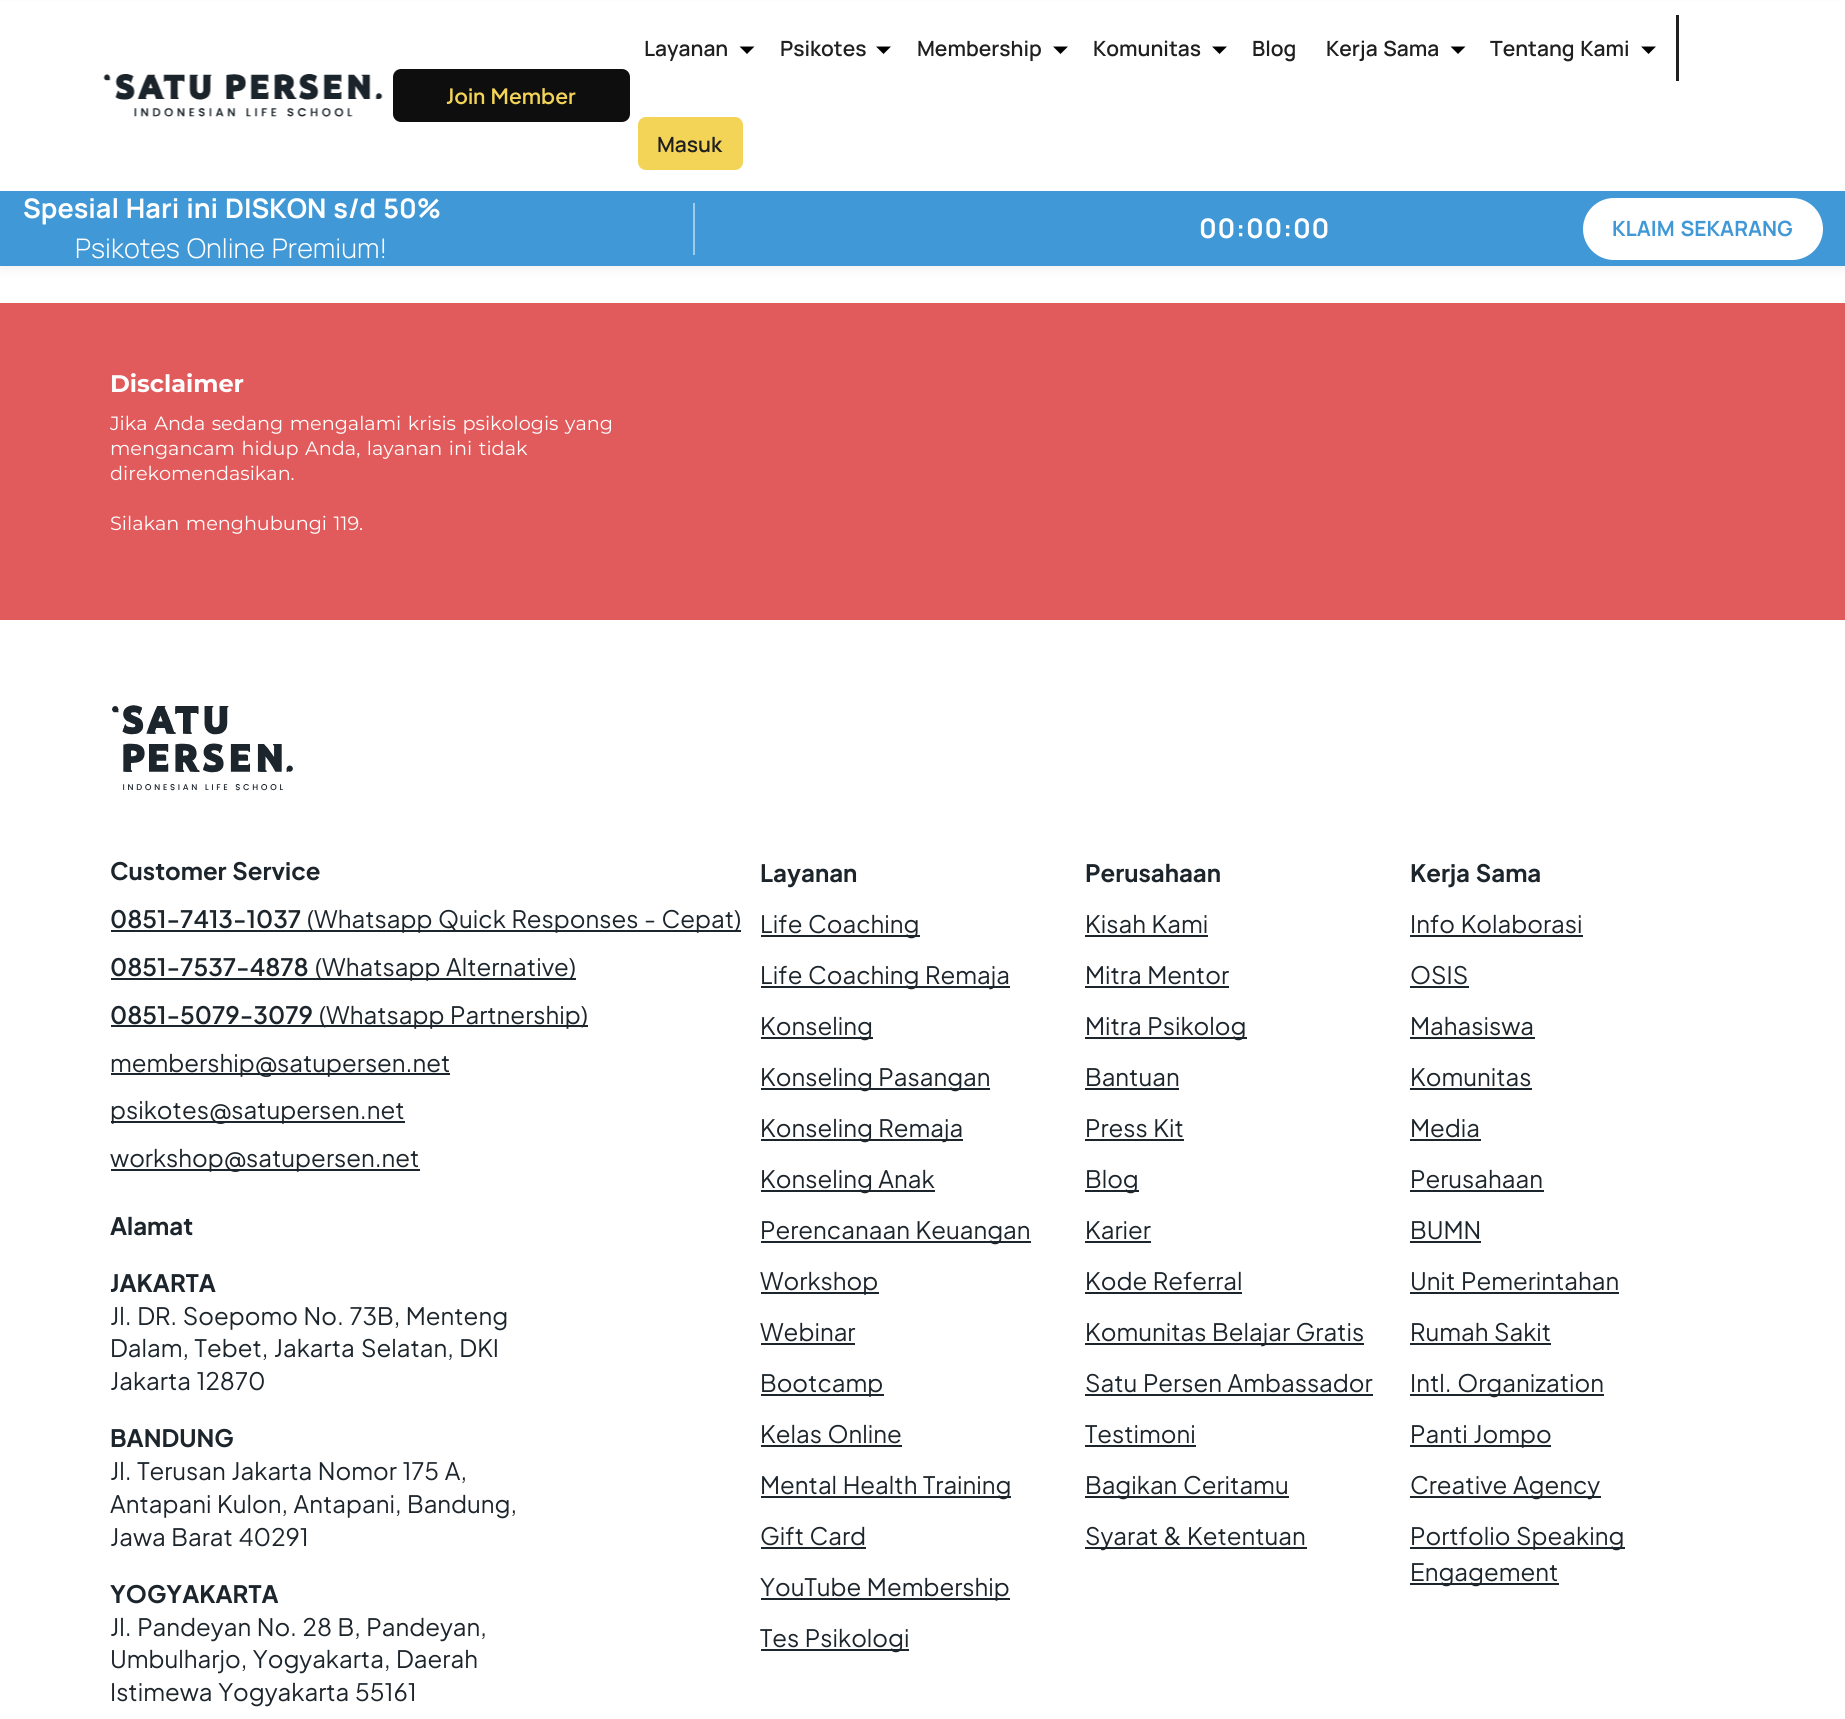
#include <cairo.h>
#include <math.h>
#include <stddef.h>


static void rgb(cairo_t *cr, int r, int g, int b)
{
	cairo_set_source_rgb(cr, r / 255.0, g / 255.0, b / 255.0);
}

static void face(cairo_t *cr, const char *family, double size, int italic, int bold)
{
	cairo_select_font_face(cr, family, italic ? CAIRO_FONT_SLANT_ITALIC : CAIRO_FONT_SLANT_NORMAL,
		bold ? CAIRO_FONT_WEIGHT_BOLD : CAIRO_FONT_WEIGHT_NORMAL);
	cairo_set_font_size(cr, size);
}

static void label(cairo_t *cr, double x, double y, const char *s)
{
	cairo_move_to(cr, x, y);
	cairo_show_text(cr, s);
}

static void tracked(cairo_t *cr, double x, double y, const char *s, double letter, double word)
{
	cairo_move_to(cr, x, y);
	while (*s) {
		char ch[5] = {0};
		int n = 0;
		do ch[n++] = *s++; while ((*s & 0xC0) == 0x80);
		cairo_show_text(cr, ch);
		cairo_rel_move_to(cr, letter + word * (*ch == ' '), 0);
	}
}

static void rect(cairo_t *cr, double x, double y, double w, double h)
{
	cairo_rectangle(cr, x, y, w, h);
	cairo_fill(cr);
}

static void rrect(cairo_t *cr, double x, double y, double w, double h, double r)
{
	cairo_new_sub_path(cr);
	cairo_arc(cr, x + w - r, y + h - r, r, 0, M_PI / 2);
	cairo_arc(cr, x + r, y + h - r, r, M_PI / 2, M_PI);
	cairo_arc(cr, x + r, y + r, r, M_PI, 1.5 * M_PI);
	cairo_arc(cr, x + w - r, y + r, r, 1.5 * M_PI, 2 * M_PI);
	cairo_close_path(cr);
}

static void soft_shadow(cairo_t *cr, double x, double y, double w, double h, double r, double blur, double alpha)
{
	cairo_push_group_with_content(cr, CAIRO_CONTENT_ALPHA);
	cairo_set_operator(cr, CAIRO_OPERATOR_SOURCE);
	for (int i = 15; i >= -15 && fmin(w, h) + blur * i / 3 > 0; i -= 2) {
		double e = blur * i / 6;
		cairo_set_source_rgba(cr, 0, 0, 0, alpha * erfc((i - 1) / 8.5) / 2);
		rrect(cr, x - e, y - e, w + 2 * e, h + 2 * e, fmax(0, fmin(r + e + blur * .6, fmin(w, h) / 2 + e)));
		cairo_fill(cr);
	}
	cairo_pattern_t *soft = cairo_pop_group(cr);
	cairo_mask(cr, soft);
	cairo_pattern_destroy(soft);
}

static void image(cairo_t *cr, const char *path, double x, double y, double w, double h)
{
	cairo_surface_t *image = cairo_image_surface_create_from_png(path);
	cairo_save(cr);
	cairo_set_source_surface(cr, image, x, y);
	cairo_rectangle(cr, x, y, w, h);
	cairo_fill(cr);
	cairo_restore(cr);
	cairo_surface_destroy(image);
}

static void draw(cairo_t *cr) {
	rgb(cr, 255, 255, 255);
	cairo_paint(cr);
	rgb(cr, 0, 0, 0);
	soft_shadow(cr, 0, 5, 1845, 265, 0, 4.5, 0.05);
	rgb(cr, 255, 255, 255);
	rect(cr, 0, 1, 1845, 190);
	image(cr, "image0.png", 103, 74, 280, 43);
	rgb(cr, 14, 14, 14);
	rrect(cr, 393, 69, 237, 53, 8);
	cairo_fill(cr);
	face(cr, "Plus Jakarta Sans SemiBold", 21, 0, 0);
	rgb(cr, 243, 212, 87);
	tracked(cr, 446, 104, "Join Member", 0, 1.5);
	face(cr, "Manrope SemiBold", 21, 0, 0);
	rgb(cr, 31, 31, 31);
	label(cr, 644, 56, "Layanan");
	rgb(cr, 0, 0, 0);
	cairo_new_path(cr);
	cairo_move_to(cr, 739.5, 46.5);
	cairo_line_to(cr, 747, 54);
	cairo_line_to(cr, 754.5, 46.5);
	cairo_close_path(cr);
	cairo_fill(cr);
	rgb(cr, 31, 31, 31);
	label(cr, 780, 56, "Psikotes");
	rgb(cr, 0, 0, 0);
	cairo_new_path(cr);
	cairo_move_to(cr, 876, 46.5);
	cairo_line_to(cr, 883.5, 54);
	cairo_line_to(cr, 891, 46.5);
	cairo_close_path(cr);
	cairo_fill(cr);
	rgb(cr, 31, 31, 31);
	label(cr, 917, 56, "Membership");
	rgb(cr, 0, 0, 0);
	cairo_new_path(cr);
	cairo_move_to(cr, 1053, 46.5);
	cairo_line_to(cr, 1060.5, 54);
	cairo_line_to(cr, 1068, 46.5);
	cairo_close_path(cr);
	cairo_fill(cr);
	rgb(cr, 31, 31, 31);
	label(cr, 1093, 56, "Komunitas");
	rgb(cr, 0, 0, 0);
	cairo_new_path(cr);
	cairo_move_to(cr, 1212, 46.5);
	cairo_line_to(cr, 1219.5, 54);
	cairo_line_to(cr, 1227, 46.5);
	cairo_close_path(cr);
	cairo_fill(cr);
	rgb(cr, 31, 31, 31);
	label(cr, 1252, 56, "Blog");
	tracked(cr, 1326, 56, "Kerja Sama", 0, 1.5);
	rgb(cr, 0, 0, 0);
	cairo_new_path(cr);
	cairo_move_to(cr, 1450.5, 46.5);
	cairo_line_to(cr, 1458, 54);
	cairo_line_to(cr, 1465.5, 46.5);
	cairo_close_path(cr);
	cairo_fill(cr);
	rgb(cr, 31, 31, 31);
	tracked(cr, 1490, 56, "Tentang Kami", 0, 1.5);
	rgb(cr, 0, 0, 0);
	cairo_new_path(cr);
	cairo_move_to(cr, 1641, 46.5);
	cairo_line_to(cr, 1648.5, 54);
	cairo_line_to(cr, 1656, 46.5);
	cairo_close_path(cr);
	cairo_fill(cr);
	rgb(cr, 31, 31, 31);
	rect(cr, 1676, 15, 3, 66);
	rgb(cr, 243, 212, 87);
	rrect(cr, 638, 117, 105, 53, 8);
	cairo_fill(cr);
	rgb(cr, 31, 31, 31);
	label(cr, 657, 152, "Masuk");
	rgb(cr, 64, 152, 215);
	rect(cr, 0, 191, 1845, 75);
	face(cr, "Manrope", 27, 0, 1);
	rgb(cr, 255, 255, 255);
	tracked(cr, 23, 218, "Spesial Hari ini DISKON s/d 50%", 0, 1.5);
	face(cr, "Manrope Light", 27, 0, 0);
	tracked(cr, 75, 258, "Psikotes Online Premium!", 0, 1.5);
	rgb(cr, 160, 204, 235);
	rect(cr, 693, 203, 2, 52);
	face(cr, "Manrope", 27, 0, 1);
	rgb(cr, 255, 255, 255);
	tracked(cr, 1199, 238, "00:00:00", 0.75, 0);
	rrect(cr, 1583, 198, 240, 62, 31);
	cairo_fill(cr);
	face(cr, "Manrope", 21, 0, 1);
	rgb(cr, 64, 152, 215);
	tracked(cr, 1612, 236, "KLAIM SEKARANG", 0, 1.5);
	rgb(cr, 226, 91, 92);
	rect(cr, 0, 303, 1845, 317);
	face(cr, "Montserrat", 24, 0, 1);
	rgb(cr, 255, 255, 255);
	label(cr, 110, 392, "Disclaimer");
	face(cr, "Montserrat", 19.2, 0, 0);
	tracked(cr, 110, 430, "Jika Anda sedang mengalami krisis psikologis yang", 0, 1.5);
	tracked(cr, 110, 455, "mengancam hidup Anda, layanan ini tidak", 0, 1.5);
	label(cr, 110, 480, "direkomendasikan.");
	tracked(cr, 110, 530, "Silakan menghubungi 119.", 0, 1.5);
	image(cr, "image1.png", 112, 705, 181, 86);
	face(cr, "Plus Jakarta Sans", 24, 0, 1);
	rgb(cr, 29, 37, 44);
	tracked(cr, 110, 880, "Customer Service", 0, 1.5);
	face(cr, "Plus Jakarta Sans SemiBold", 24, 0, 0);
	label(cr, 110, 928, "0851-7413-1037");
	rect(cr, 111, 930, 630, 2);
	face(cr, "Plus Jakarta Sans", 24, 0, 0);
	tracked(cr, 307, 928, "(Whatsapp Quick Responses", 0, 1.5);
	tracked(cr, 644, 928, "- Cepat)", 0, 1.5);
	face(cr, "Plus Jakarta Sans SemiBold", 24, 0, 0);
	label(cr, 110, 976, "0851-7537-4878");
	rect(cr, 111, 978, 465, 2);
	face(cr, "Plus Jakarta Sans", 24, 0, 0);
	tracked(cr, 315, 976, "(Whatsapp Alternative)", 0, 1.5);
	face(cr, "Plus Jakarta Sans SemiBold", 24, 0, 0);
	label(cr, 110, 1024, "0851-5079-3079");
	rect(cr, 111, 1025, 477, 2);
	face(cr, "Plus Jakarta Sans", 24, 0, 0);
	tracked(cr, 319, 1024, "(Whatsapp Partnership)", 0, 1.5);
	rect(cr, 111, 1073, 339, 2);
	label(cr, 110, 1072, "membership@satupersen.net");
	rect(cr, 111, 1121, 294, 2);
	label(cr, 110, 1119, "psikotes@satupersen.net");
	rect(cr, 111, 1169, 309, 2);
	label(cr, 110, 1167, "workshop@satupersen.net");
	face(cr, "Plus Jakarta Sans", 24, 0, 1);
	label(cr, 110, 1235, "Alamat");
	label(cr, 110, 1292, "JAKARTA");
	face(cr, "Plus Jakarta Sans", 24, 0, 0);
	tracked(cr, 110, 1325, "Jl. DR. Soepomo No. 73B, Menteng", 0, 1.5);
	tracked(cr, 110, 1357, "Dalam, Tebet, Jakarta", 0, 1.5);
	tracked(cr, 361, 1357, "Selatan, DKI", 0, 1.5);
	tracked(cr, 110, 1390, "Jakarta 12870", 0, 1.5);
	face(cr, "Plus Jakarta Sans", 24, 0, 1);
	label(cr, 110, 1447, "BANDUNG");
	face(cr, "Plus Jakarta Sans", 24, 0, 0);
	tracked(cr, 110, 1480, "Jl. Terusan Jakarta Nomor 175 A,", 0, 1.5);
	tracked(cr, 110, 1513, "Antapani Kulon, Antapani,", 0, 1.5);
	label(cr, 407, 1513, "Bandung,");
	tracked(cr, 110, 1546, "Jawa Barat 40291", 0, 1.5);
	face(cr, "Plus Jakarta Sans", 24, 0, 1);
	label(cr, 110, 1603, "YOGYAKARTA");
	face(cr, "Plus Jakarta Sans", 24, 0, 0);
	tracked(cr, 110, 1636, "Jl. Pandeyan No. 28 B, Pandeyan,", 0, 1.5);
	tracked(cr, 110, 1668, "Umbulharjo, Yogyakarta,", 0, 1.5);
	label(cr, 396, 1668, "Daerah");
	tracked(cr, 110, 1701, "Istimewa Yogyakarta 55161", 0, 1.5);
	face(cr, "Plus Jakarta Sans", 24, 0, 1);
	label(cr, 760, 882, "Layanan");
	rect(cr, 761, 935, 159, 2);
	face(cr, "Plus Jakarta Sans", 24, 0, 0);
	tracked(cr, 760, 933, "Life Coaching", 0, 1.5);
	rect(cr, 761, 986, 249, 2);
	tracked(cr, 760, 984, "Life Coaching Remaja", 0, 1.5);
	rect(cr, 761, 1037, 112, 2);
	label(cr, 760, 1035, "Konseling");
	rect(cr, 761, 1088, 229, 2);
	tracked(cr, 760, 1086, "Konseling Pasangan", 0, 1.5);
	rect(cr, 761, 1139, 202, 2);
	tracked(cr, 760, 1137, "Konseling Remaja", 0, 1.5);
	rect(cr, 761, 1190, 174, 2);
	tracked(cr, 760, 1188, "Konseling Anak", 0, 1.5);
	rect(cr, 761, 1241, 270, 2);
	tracked(cr, 760, 1239, "Perencanaan Keuangan", 0, 1.5);
	rect(cr, 761, 1292, 118, 2);
	label(cr, 760, 1290, "Workshop");
	label(cr, 760, 1341, "Webinar");
	rect(cr, 761, 1343, 94, 2);
	rect(cr, 761, 1394, 123, 2);
	label(cr, 760, 1392, "Bootcamp");
	tracked(cr, 760, 1443, "Kelas Online", 0, 1.5);
	rect(cr, 761, 1445, 141, 2);
	rect(cr, 761, 1496, 250, 2);
	tracked(cr, 760, 1494, "Mental Health Training", 0, 1.5);
	tracked(cr, 760, 1545, "Gift Card", 0, 1.5);
	rect(cr, 761, 1547, 105, 2);
	rect(cr, 761, 1598, 249, 2);
	tracked(cr, 760, 1596, "YouTube Membership", 0, 1.5);
	rect(cr, 761, 1649, 148, 2);
	tracked(cr, 760, 1647, "Tes Psikologi", 0, 1.5);
	face(cr, "Plus Jakarta Sans", 24, 0, 1);
	label(cr, 1085, 882, "Perusahaan");
	face(cr, "Plus Jakarta Sans", 24, 0, 0);
	tracked(cr, 1085, 933, "Kisah Kami", 0, 1.5);
	rect(cr, 1085, 935, 123, 2);
	tracked(cr, 1085, 984, "Mitra Mentor", 0, 1.5);
	rect(cr, 1085, 986, 144, 2);
	rect(cr, 1085, 1037, 162, 2);
	tracked(cr, 1085, 1035, "Mitra Psikolog", 0, 1.5);
	label(cr, 1085, 1086, "Bantuan");
	rect(cr, 1085, 1088, 94, 2);
	tracked(cr, 1085, 1137, "Press Kit", 0, 1.5);
	rect(cr, 1085, 1139, 99, 2);
	rect(cr, 1085, 1190, 54, 2);
	label(cr, 1085, 1188, "Blog");
	label(cr, 1085, 1239, "Karier");
	rect(cr, 1085, 1241, 66, 2);
	tracked(cr, 1085, 1290, "Kode Referral", 0, 1.5);
	rect(cr, 1085, 1292, 157, 2);
	rect(cr, 1085, 1343, 279, 2);
	tracked(cr, 1085, 1341, "Komunitas Belajar Gratis", 0, 1.5);
	tracked(cr, 1085, 1392, "Satu Persen Ambassador", 0, 1.5);
	rect(cr, 1085, 1394, 288, 2);
	label(cr, 1085, 1443, "Testimoni");
	rect(cr, 1085, 1445, 111, 2);
	rect(cr, 1085, 1496, 204, 2);
	tracked(cr, 1085, 1494, "Bagikan Ceritamu", 0, 1.5);
	rect(cr, 1085, 1547, 222, 2);
	tracked(cr, 1085, 1545, "Syarat & Ketentuan", 0, 1.5);
	face(cr, "Plus Jakarta Sans", 24, 0, 1);
	tracked(cr, 1410, 882, "Kerja Sama", 0, 1.5);
	face(cr, "Plus Jakarta Sans", 24, 0, 0);
	tracked(cr, 1410, 933, "Info Kolaborasi", 0, 1.5);
	rect(cr, 1410, 935, 173, 2);
	label(cr, 1410, 984, "OSIS");
	rect(cr, 1410, 986, 59, 2);
	label(cr, 1410, 1035, "Mahasiswa");
	rect(cr, 1410, 1037, 125, 2);
	label(cr, 1410, 1086, "Komunitas");
	rect(cr, 1410, 1088, 122, 2);
	label(cr, 1410, 1137, "Media");
	rect(cr, 1410, 1139, 71, 2);
	label(cr, 1410, 1188, "Perusahaan");
	rect(cr, 1410, 1190, 134, 2);
	label(cr, 1410, 1239, "BUMN");
	rect(cr, 1410, 1241, 71, 2);
	tracked(cr, 1410, 1290, "Unit Pemerintahan", 0, 1.5);
	rect(cr, 1410, 1292, 209, 2);
	tracked(cr, 1410, 1341, "Rumah Sakit", 0, 1.5);
	rect(cr, 1410, 1343, 141, 2);
	rect(cr, 1410, 1394, 194, 2);
	tracked(cr, 1410, 1392, "Intl. Organization", 0, 1.5);
	rect(cr, 1410, 1445, 141, 2);
	tracked(cr, 1410, 1443, "Panti Jompo", 0, 1.5);
	rect(cr, 1410, 1496, 191, 2);
	tracked(cr, 1410, 1494, "Creative Agency", 0, 1.5);
	rect(cr, 1410, 1547, 215, 2);
	tracked(cr, 1410, 1545, "Portfolio Speaking", 0, 1.5);
	rect(cr, 1410, 1583, 149, 2);
	label(cr, 1410, 1581, "Engagement");
}

int main(void) {
	cairo_surface_t *surface = cairo_image_surface_create(CAIRO_FORMAT_RGB24, 1845, 1719);
	cairo_t *cr = cairo_create(surface);
	cairo_font_options_t *options = cairo_font_options_create();
	cairo_font_options_set_hint_metrics(options, CAIRO_HINT_METRICS_OFF);
	cairo_font_options_set_hint_style(options, CAIRO_HINT_STYLE_NONE);
	cairo_set_font_options(cr, options);
	cairo_set_miter_limit(cr, 4);
	draw(cr);
	cairo_surface_write_to_png(surface, "render.png");
	cairo_font_options_destroy(options);
	cairo_destroy(cr);
	cairo_surface_destroy(surface);
	return 0;
}
